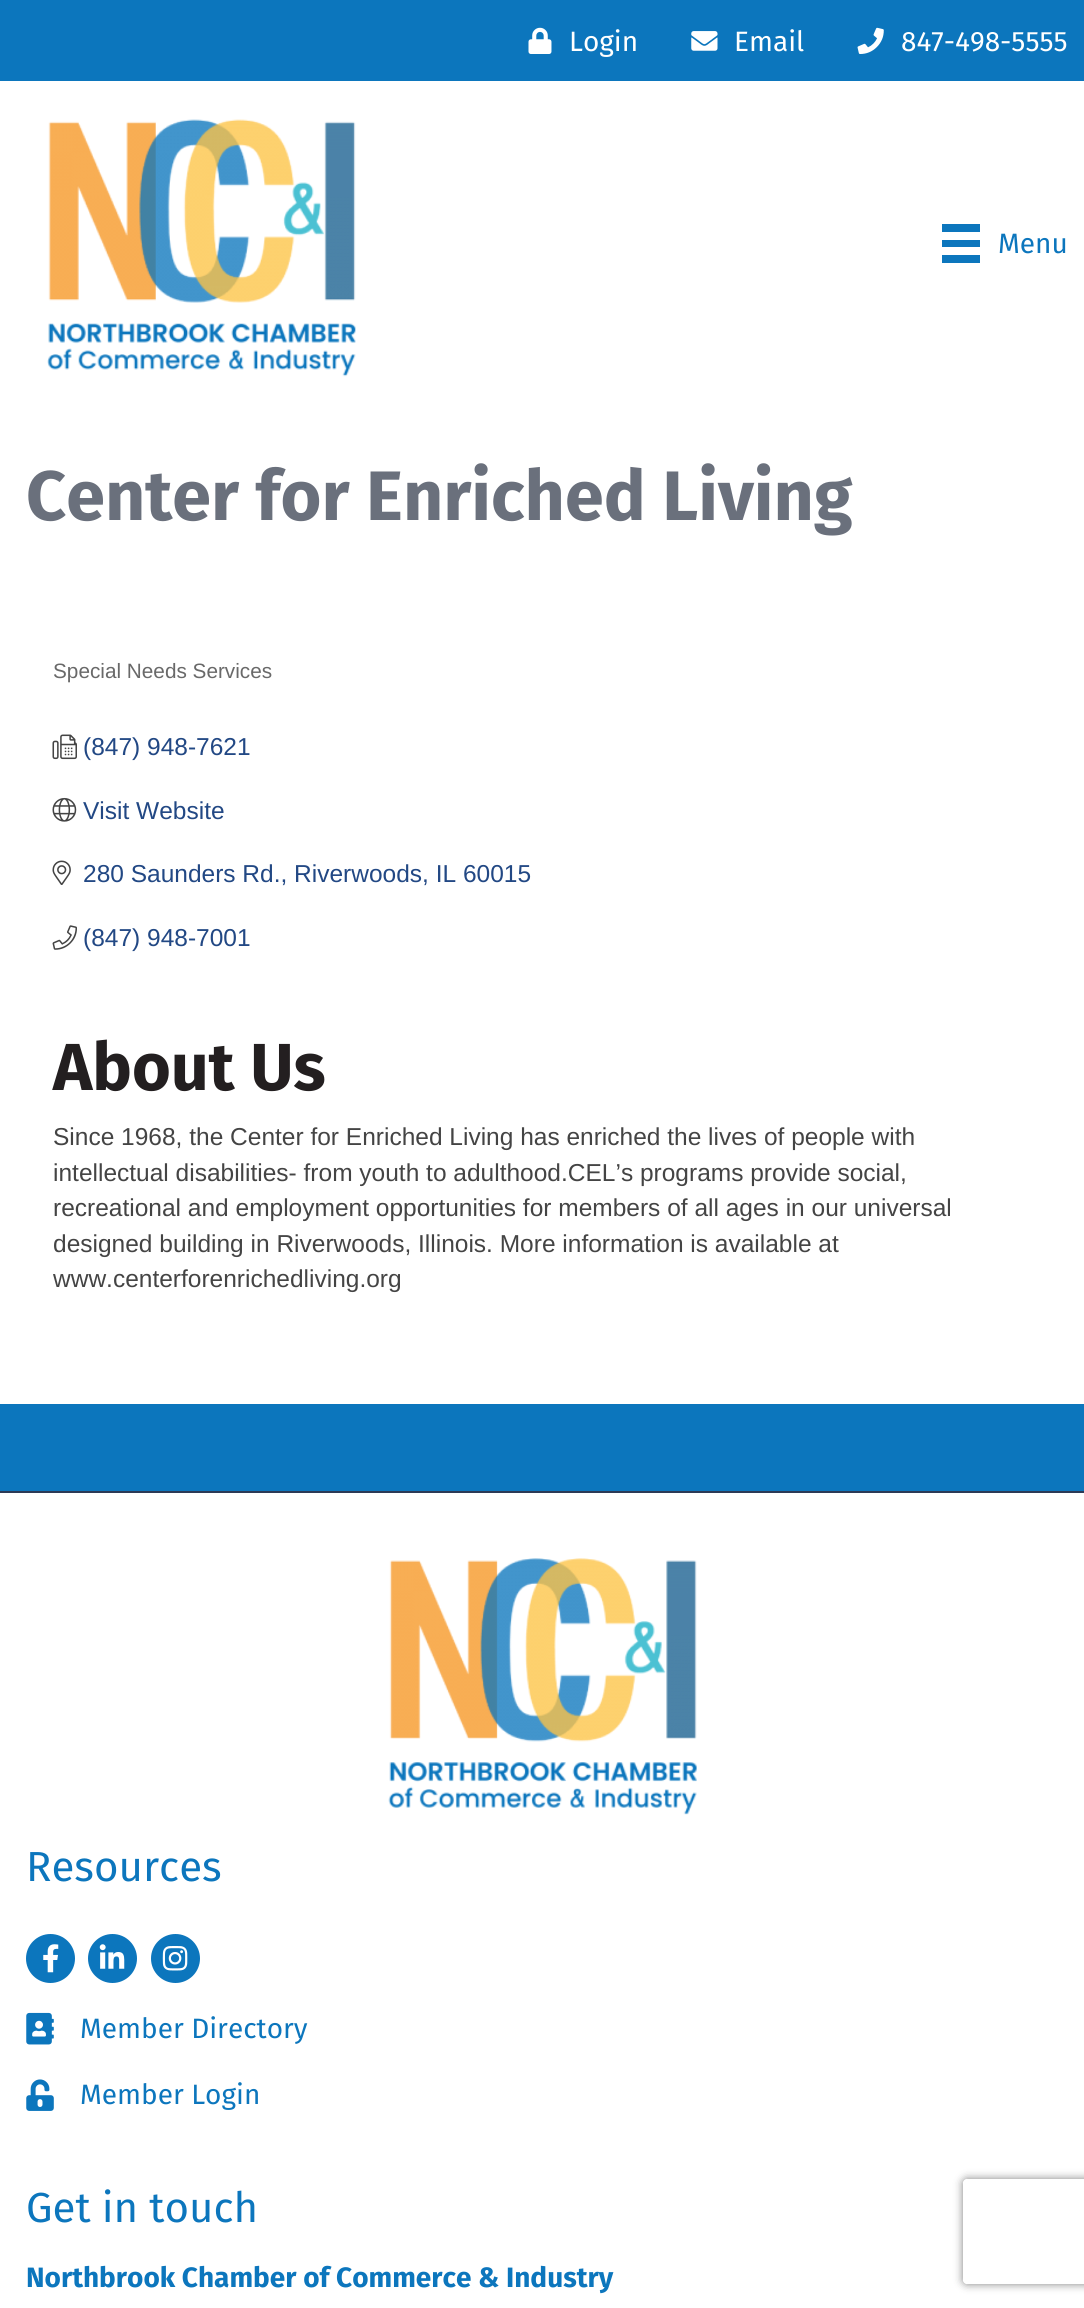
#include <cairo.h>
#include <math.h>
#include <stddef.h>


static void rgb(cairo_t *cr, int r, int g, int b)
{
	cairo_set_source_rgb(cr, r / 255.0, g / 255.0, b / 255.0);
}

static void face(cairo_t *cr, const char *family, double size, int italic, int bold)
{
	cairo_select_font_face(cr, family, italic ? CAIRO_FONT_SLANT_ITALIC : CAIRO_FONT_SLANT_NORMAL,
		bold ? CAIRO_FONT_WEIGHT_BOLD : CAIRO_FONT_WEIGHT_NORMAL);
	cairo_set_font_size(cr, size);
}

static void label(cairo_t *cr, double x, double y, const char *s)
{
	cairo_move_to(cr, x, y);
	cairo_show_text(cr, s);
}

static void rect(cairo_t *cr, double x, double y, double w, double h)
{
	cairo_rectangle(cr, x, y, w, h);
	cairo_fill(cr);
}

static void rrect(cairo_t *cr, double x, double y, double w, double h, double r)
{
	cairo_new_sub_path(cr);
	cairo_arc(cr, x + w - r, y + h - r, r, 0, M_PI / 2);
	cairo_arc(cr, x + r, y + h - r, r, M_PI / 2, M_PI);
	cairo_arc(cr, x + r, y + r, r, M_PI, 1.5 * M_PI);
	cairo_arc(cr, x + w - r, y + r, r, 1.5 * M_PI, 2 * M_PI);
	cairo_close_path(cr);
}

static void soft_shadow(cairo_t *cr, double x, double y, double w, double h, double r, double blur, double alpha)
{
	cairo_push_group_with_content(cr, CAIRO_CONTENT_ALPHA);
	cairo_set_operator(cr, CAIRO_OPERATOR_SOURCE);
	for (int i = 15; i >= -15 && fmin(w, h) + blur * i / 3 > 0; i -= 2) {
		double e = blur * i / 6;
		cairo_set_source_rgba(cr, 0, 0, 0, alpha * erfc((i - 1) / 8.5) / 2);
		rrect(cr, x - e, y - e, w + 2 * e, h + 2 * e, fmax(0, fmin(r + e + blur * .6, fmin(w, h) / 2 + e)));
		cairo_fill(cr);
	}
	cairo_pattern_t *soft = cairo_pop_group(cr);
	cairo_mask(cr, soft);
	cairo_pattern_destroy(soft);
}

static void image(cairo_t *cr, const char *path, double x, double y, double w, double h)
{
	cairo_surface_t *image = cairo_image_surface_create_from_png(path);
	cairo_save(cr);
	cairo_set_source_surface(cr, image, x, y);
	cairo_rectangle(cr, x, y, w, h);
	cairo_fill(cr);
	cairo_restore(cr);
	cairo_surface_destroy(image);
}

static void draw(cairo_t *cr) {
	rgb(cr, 255, 255, 255);
	cairo_paint(cr);
	rgb(cr, 12, 118, 189);
	rect(cr, 0, 0, 1084, 81);
	image(cr, "image0.png", 528, 27, 24, 27);
	face(cr, "Fira Sans", 28, 0, 0);
	rgb(cr, 255, 255, 255);
	label(cr, 569, 51, "Login");
	image(cr, "image1.png", 691, 31, 27, 20);
	label(cr, 734, 51, "Email");
	image(cr, "image2.png", 857, 27, 27, 27);
	label(cr, 901, 51, "847-498-5555");
	image(cr, "image3.png", 47, 119, 309, 258);
	rgb(cr, 12, 118, 189);
	rect(cr, 942, 224, 38, 8);
	rect(cr, 942, 240, 38, 7);
	rect(cr, 942, 255, 38, 8);
	label(cr, 998, 253, "Menu");
	face(cr, "Fira Sans", 70, 0, 1);
	rgb(cr, 106, 112, 124);
	label(cr, 26, 520, "Center for Enriched Living");
	face(cr, "Liberation Sans", 20.75, 0, 0);
	rgb(cr, 105, 105, 105);
	label(cr, 53, 678, "Special Needs Services");
	image(cr, "image4.png", 52, 734, 25, 26);
	face(cr, "Liberation Sans", 24.5, 0, 0);
	rgb(cr, 34, 72, 132);
	label(cr, 83, 755, "(847) 948-7621");
	image(cr, "image5.png", 52, 797, 25, 25);
	label(cr, 83, 819, "Visit Website");
	image(cr, "image6.png", 52, 860, 19, 25);
	label(cr, 83, 882, "280 Saunders Rd., Riverwoods, IL 60015");
	image(cr, "image7.png", 52, 925, 25, 25);
	label(cr, 83, 946, "(847) 948-7001");
	face(cr, "Fira Sans", 66.5, 0, 1);
	rgb(cr, 35, 31, 32);
	label(cr, 53, 1090, "About Us");
	face(cr, "Liberation Sans", 24.5, 0, 0);
	rgb(cr, 68, 68, 68);
	label(cr, 53, 1145, "Since 1968, the Center for Enriched Living has enriched the lives of people with");
	label(cr, 53, 1181, "intellectual disabilities- from youth to adulthood.CEL’s programs provide social,");
	label(cr, 53, 1216, "recreational and employment opportunities for members of all ages in our universal");
	label(cr, 53, 1252, "designed building in Riverwoods, Illinois. More information is available at");
	label(cr, 53, 1287, "www.centerforenrichedliving.org");
	rgb(cr, 12, 118, 189);
	rect(cr, 0, 1404, 1084, 87);
	rgb(cr, 44, 58, 86);
	rect(cr, 0, 1491, 1084, 2);
	image(cr, "image8.png", 388, 1558, 309, 257);
	face(cr, "Fira Sans", 42, 0, 0);
	rgb(cr, 12, 118, 189);
	label(cr, 26, 1881, "Resources");
	cairo_new_path(cr);
	cairo_arc(cr, 50.5, 1958.5, 24.5, 0, 2 * M_PI);
	cairo_fill(cr);
	image(cr, "image9.png", 43, 1944, 16, 29);
	cairo_arc(cr, 112.5, 1958.5, 24.5, 0, 2 * M_PI);
	cairo_fill(cr);
	image(cr, "image10.png", 99, 1944, 26, 25);
	cairo_arc(cr, 175.5, 1958.5, 24.5, 0, 2 * M_PI);
	cairo_fill(cr);
	image(cr, "image11.png", 162, 1946, 26, 25);
	image(cr, "image12.png", 26, 2012, 28, 33);
	face(cr, "Fira Sans", 28, 0, 0);
	label(cr, 80, 2038, "Member Directory");
	image(cr, "image13.png", 26, 2079, 28, 32);
	label(cr, 80, 2104, "Member Login");
	face(cr, "Fira Sans", 42, 0, 0);
	label(cr, 26, 2222, "Get in touch");
	face(cr, "Fira Sans", 28, 0, 1);
	label(cr, 26, 2287, "Northbrook Chamber of Commerce & Industry");
	cairo_save(cr);
	cairo_set_fill_rule(cr, CAIRO_FILL_RULE_EVEN_ODD);
	cairo_new_path(cr);
	cairo_move_to(cr, 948, 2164);
	cairo_line_to(cr, 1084, 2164);
	cairo_line_to(cr, 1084, 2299);
	cairo_line_to(cr, 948, 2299);
	cairo_close_path(cr);
	cairo_move_to(cr, 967, 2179);
	cairo_line_to(cr, 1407, 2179);
	cairo_curve_to(cr, 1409, 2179, 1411, 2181, 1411, 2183);
	cairo_line_to(cr, 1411, 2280);
	cairo_curve_to(cr, 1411, 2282, 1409, 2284, 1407, 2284);
	cairo_line_to(cr, 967, 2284);
	cairo_curve_to(cr, 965, 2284, 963, 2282, 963, 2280);
	cairo_line_to(cr, 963, 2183);
	cairo_curve_to(cr, 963, 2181, 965, 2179, 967, 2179);
	cairo_close_path(cr);
	cairo_clip(cr);
	rgb(cr, 128, 128, 128);
	soft_shadow(cr, 963, 2179, 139, 105, 4, 4.5, 1);
	cairo_restore(cr);
}

int main(void) {
	cairo_surface_t *surface = cairo_image_surface_create(CAIRO_FORMAT_RGB24, 1084, 2308);
	cairo_t *cr = cairo_create(surface);
	cairo_font_options_t *options = cairo_font_options_create();
	cairo_font_options_set_hint_metrics(options, CAIRO_HINT_METRICS_OFF);
	cairo_font_options_set_hint_style(options, CAIRO_HINT_STYLE_NONE);
	cairo_set_font_options(cr, options);
	cairo_set_miter_limit(cr, 4);
	draw(cr);
	cairo_surface_write_to_png(surface, "render.png");
	cairo_font_options_destroy(options);
	cairo_destroy(cr);
	cairo_surface_destroy(surface);
	return 0;
}
